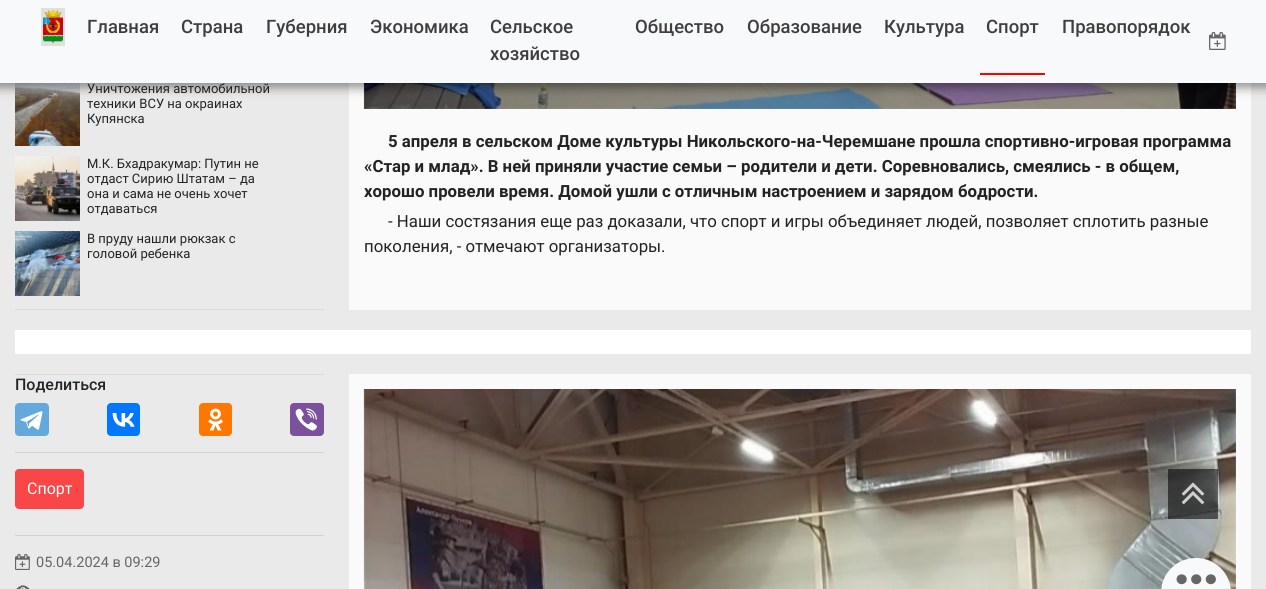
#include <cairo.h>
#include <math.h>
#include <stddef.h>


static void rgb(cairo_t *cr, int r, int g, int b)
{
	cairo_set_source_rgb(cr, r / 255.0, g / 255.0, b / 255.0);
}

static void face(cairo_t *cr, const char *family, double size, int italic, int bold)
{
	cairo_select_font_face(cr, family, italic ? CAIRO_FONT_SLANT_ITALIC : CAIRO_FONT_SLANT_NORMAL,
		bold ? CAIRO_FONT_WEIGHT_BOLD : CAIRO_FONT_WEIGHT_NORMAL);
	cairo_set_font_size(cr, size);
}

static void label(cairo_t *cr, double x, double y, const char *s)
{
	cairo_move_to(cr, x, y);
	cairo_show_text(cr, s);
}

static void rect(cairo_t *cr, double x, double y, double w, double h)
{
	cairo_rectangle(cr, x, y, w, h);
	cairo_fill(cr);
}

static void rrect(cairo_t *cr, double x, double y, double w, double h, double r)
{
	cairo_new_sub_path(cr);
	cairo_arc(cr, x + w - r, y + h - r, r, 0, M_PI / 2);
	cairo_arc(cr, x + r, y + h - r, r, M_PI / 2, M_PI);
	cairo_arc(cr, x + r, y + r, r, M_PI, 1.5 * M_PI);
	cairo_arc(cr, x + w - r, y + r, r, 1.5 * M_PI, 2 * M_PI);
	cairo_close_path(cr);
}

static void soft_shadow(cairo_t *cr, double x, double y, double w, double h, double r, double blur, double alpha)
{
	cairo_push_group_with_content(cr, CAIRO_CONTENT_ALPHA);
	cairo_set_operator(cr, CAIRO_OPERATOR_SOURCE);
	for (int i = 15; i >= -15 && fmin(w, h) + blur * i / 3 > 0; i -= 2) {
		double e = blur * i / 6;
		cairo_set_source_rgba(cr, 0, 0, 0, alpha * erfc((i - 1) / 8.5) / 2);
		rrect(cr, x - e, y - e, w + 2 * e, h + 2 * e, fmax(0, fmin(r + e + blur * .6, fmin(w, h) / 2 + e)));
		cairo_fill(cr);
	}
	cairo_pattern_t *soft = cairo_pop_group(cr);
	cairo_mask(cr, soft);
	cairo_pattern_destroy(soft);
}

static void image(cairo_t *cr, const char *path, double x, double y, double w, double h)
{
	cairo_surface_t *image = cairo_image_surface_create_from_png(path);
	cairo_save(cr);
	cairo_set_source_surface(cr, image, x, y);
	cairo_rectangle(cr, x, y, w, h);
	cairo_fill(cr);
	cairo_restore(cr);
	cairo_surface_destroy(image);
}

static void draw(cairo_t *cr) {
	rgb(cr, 234, 234, 234);
	cairo_paint(cr);
	image(cr, "image2.png", 15, 83, 65, 63);
	rgb(cr, 250, 250, 250);
	rect(cr, 349, 83, 902, 227);
	image(cr, "image5.png", 363, 83, 873, 26);
	cairo_set_source_rgba(cr, 0, 0, 0, 0.3);
	rect(cr, 364, 83, 872, 26);
	rgb(cr, 0, 0, 0);
	soft_shadow(cr, -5, -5, 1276, 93, 0, 5, 0.4);
	rgb(cr, 248, 249, 250);
	rect(cr, 0, 0, 1266, 83);
	image(cr, "image0.png", 41, 8, 24, 38);
	face(cr, "Roboto Medium", 18.5, 0, 0);
	rgb(cr, 62, 62, 63);
	label(cr, 87, 33, "Главная");
	label(cr, 181, 33, "Страна");
	label(cr, 266, 33, "Губерния");
	label(cr, 370, 33, "Экономика");
	label(cr, 490, 33, "Сельское");
	label(cr, 490, 60, "хозяйство");
	label(cr, 635, 33, "Общество");
	label(cr, 747, 33, "Образование");
	label(cr, 884, 33, "Культура");
	rgb(cr, 255, 0, 0);
	rect(cr, 980, 73, 65, 2);
	rgb(cr, 62, 62, 63);
	label(cr, 986, 33, "Спорт");
	label(cr, 1062, 33, "Правопорядок");
	image(cr, "image1.png", 1209, 32, 17, 18);
	rgb(cr, 218, 218, 218);
	rect(cr, 15, 309, 309, 1);
	face(cr, "Roboto", 13, 0, 0);
	rgb(cr, 35, 35, 35);
	label(cr, 87, 93, "Уничтожения автомобильной");
	label(cr, 87, 108, "техники ВСУ на окраинах");
	label(cr, 87, 123, "Купянска");
	image(cr, "image3.png", 15, 156, 65, 65);
	label(cr, 87, 168, "М.К. Бхадракумар: Путин не");
	label(cr, 87, 183, "отдаст Сирию Штатам – да");
	label(cr, 87, 198, "она и сама не очень хочет");
	label(cr, 87, 213, "отдаваться");
	image(cr, "image4.png", 15, 231, 65, 65);
	label(cr, 87, 243, "В пруду нашли рюкзак с");
	label(cr, 87, 258, "головой ребенка");
	face(cr, "Roboto", 16.8, 0, 1);
	label(cr, 388, 147, "5 апреля в сельском Доме культуры Никольского-на-Черемшане прошла спортивно-игровая программа");
	label(cr, 364, 172, "«Стар и млад». В ней приняли участие семьи – родители и дети. Соревновались, смеялись - в общем,");
	label(cr, 364, 197, "хорошо провели время. Домой ушли с отличным настроением и зарядом бодрости.");
	face(cr, "Roboto", 16.8, 0, 0);
	label(cr, 388, 227, "- Наши состязания еще раз доказали, что спорт и игры объединяет людей, позволяет сплотить разные");
	label(cr, 364, 252, "поколения, - отмечают организаторы.");
	rgb(cr, 255, 255, 255);
	rect(cr, 15, 330, 1236, 24);
	rgb(cr, 218, 218, 218);
	rect(cr, 15, 374, 309, 1);
	face(cr, "Roboto Medium", 16, 0, 0);
	rgb(cr, 33, 37, 41);
	label(cr, 15, 390, "Поделиться");
	rgb(cr, 100, 169, 220);
	rrect(cr, 15, 403, 34, 33, 4);
	cairo_fill(cr);
	image(cr, "image6.png", 20, 411, 23, 19);
	rgb(cr, 0, 119, 255);
	rrect(cr, 107, 403, 33, 33, 4);
	cairo_fill(cr);
	image(cr, "image7.png", 112, 413, 23, 14);
	rgb(cr, 255, 119, 0);
	rrect(cr, 199, 403, 33, 33, 4);
	cairo_fill(cr);
	image(cr, "image8.png", 208, 408, 15, 23);
	rgb(cr, 123, 81, 157);
	rrect(cr, 290, 403, 34, 33, 4);
	cairo_fill(cr);
	image(cr, "image9.png", 295, 408, 22, 23);
	rgb(cr, 211, 211, 211);
	rect(cr, 15, 452, 309, 1);
	rgb(cr, 249, 70, 70);
	rrect(cr, 15, 469, 69, 40, 4);
	cairo_fill(cr);
	face(cr, "Roboto", 16, 0, 0);
	rgb(cr, 255, 255, 255);
	label(cr, 27, 494, "Спорт");
	rgb(cr, 211, 211, 211);
	rect(cr, 15, 535, 309, 1);
	image(cr, "image10.png", 15, 554, 15, 16);
	face(cr, "Roboto", 14.5, 0, 0);
	rgb(cr, 102, 102, 102);
	label(cr, 36, 567, "05.04.2024 в 09:29");
	image(cr, "image11.png", 16, 585, 14, 4);
	rgb(cr, 250, 250, 250);
	rect(cr, 349, 374, 902, 215);
	image(cr, "image12.png", 363, 389, 873, 200);
	cairo_set_source_rgba(cr, 0, 0, 0, 0.56);
	rect(cr, 1168, 469, 50, 50);
	image(cr, "image13.png", 1181, 482, 24, 23);
	rgb(cr, 248, 249, 250);
	cairo_new_path(cr);
	cairo_move_to(cr, 1196, 558);
	cairo_curve_to(cr, 1215.5, 558, 1231, 573.5, 1231, 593);
	cairo_line_to(cr, 1231, 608);
	cairo_line_to(cr, 1161, 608);
	cairo_line_to(cr, 1161, 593);
	cairo_curve_to(cr, 1161, 573.5, 1176.5, 558, 1196, 558);
	cairo_close_path(cr);
	cairo_fill(cr);
	image(cr, "image14.png", 1176, 574, 40, 11);
}

int main(void) {
	cairo_surface_t *surface = cairo_image_surface_create(CAIRO_FORMAT_RGB24, 1266, 589);
	cairo_t *cr = cairo_create(surface);
	cairo_font_options_t *options = cairo_font_options_create();
	cairo_font_options_set_hint_metrics(options, CAIRO_HINT_METRICS_OFF);
	cairo_font_options_set_hint_style(options, CAIRO_HINT_STYLE_NONE);
	cairo_set_font_options(cr, options);
	cairo_set_miter_limit(cr, 4);
	draw(cr);
	cairo_surface_write_to_png(surface, "render.png");
	cairo_font_options_destroy(options);
	cairo_destroy(cr);
	cairo_surface_destroy(surface);
	return 0;
}
